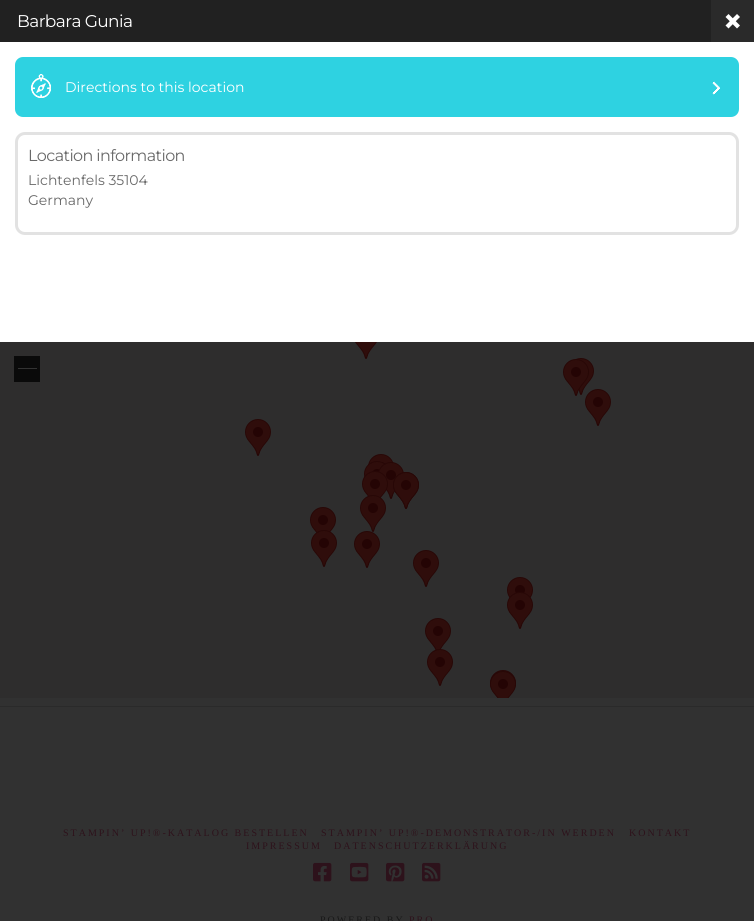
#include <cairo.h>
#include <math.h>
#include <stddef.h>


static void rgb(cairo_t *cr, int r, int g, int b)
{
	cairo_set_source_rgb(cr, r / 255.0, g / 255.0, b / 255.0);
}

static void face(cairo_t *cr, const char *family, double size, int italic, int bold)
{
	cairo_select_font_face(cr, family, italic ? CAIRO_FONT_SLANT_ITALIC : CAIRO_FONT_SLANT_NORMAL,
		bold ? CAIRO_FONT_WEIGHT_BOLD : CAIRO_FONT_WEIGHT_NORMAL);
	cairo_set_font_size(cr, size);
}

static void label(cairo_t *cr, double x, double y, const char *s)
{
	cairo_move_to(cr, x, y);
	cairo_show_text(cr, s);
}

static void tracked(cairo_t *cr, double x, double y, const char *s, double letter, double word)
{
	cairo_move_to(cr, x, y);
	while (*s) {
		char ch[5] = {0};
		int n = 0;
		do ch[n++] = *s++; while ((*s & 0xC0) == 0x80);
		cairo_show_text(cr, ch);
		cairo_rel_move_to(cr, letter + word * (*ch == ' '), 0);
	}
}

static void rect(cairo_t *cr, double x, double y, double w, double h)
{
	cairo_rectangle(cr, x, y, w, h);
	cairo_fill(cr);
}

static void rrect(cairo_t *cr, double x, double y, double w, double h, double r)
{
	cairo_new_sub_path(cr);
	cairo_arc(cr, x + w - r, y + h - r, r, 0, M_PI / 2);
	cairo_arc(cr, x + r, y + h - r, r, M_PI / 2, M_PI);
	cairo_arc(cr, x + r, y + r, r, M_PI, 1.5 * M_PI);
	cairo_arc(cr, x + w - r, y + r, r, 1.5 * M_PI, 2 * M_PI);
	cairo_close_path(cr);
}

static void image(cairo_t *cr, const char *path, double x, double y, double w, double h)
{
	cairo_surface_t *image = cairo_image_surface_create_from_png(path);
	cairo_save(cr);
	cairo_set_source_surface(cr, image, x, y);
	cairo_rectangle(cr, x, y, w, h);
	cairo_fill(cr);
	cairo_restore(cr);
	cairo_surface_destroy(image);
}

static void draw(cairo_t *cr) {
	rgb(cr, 49, 49, 49);
	cairo_paint(cr);
	rgb(cr, 255, 255, 255);
	rect(cr, 0, 42, 754, 300);
	rgb(cr, 33, 33, 33);
	rect(cr, 0, 0, 711, 42);
	face(cr, "Montserrat Thin", 17, 0, 0);
	rgb(cr, 255, 255, 255);
	tracked(cr, 17, 27, "Barbara Gunia", -0.6, 0);
	rgb(cr, 42, 42, 42);
	rect(cr, 711, 0, 43, 42);
	rgb(cr, 255, 255, 255);
	cairo_new_path(cr);
	cairo_move_to(cr, 737, 14);
	cairo_line_to(cr, 740, 17);
	cairo_line_to(cr, 728.5, 28.5);
	cairo_line_to(cr, 725.5, 25.5);
	cairo_close_path(cr);
	cairo_fill(cr);
	cairo_new_path(cr);
	cairo_move_to(cr, 728.5, 14);
	cairo_line_to(cr, 740, 25.5);
	cairo_line_to(cr, 737, 28.5);
	cairo_line_to(cr, 725.5, 17);
	cairo_close_path(cr);
	cairo_fill(cr);
	rgb(cr, 46, 210, 225);
	rrect(cr, 15, 57, 724, 60, 8);
	cairo_fill(cr);
	image(cr, "image0.png", 31, 74, 20, 24);
	face(cr, "Montserrat Thin", 14, 0, 0);
	rgb(cr, 255, 255, 255);
	label(cr, 65, 92, "Directions to this location");
	image(cr, "image1.png", 712, 81, 8, 14);
	rrect(cr, 16.5, 133.5, 721, 100, 8.5);
	rgb(cr, 226, 226, 226);
	cairo_set_line_width(cr, 3);
	cairo_stroke(cr);
	face(cr, "Montserrat Thin", 16, 0, 0);
	rgb(cr, 105, 105, 105);
	tracked(cr, 28, 161, "Location information", -0.6, 0);
	face(cr, "Montserrat Thin", 14, 0, 0);
	label(cr, 28, 185, "Lichtenfels 35104");
	label(cr, 28, 205, "Germany");
	rgb(cr, 46, 45, 45);
	rect(cr, 0, 342, 754, 356);
	image(cr, "image2.png", 355, 342, 22, 17);
	image(cr, "image3.png", 574, 358, 20, 37);
	image(cr, "image4.png", 563, 359, 26, 37);
	image(cr, "image5.png", 585, 389, 26, 37);
	image(cr, "image5.png", 245, 419, 26, 37);
	image(cr, "image6.png", 368, 454, 26, 11);
	image(cr, "image7.png", 364, 461, 21, 16);
	image(cr, "image8.png", 378, 462, 26, 37);
	image(cr, "image9.png", 362, 471, 26, 27);
	image(cr, "image10.png", 393, 472, 26, 37);
	image(cr, "image11.png", 393, 472, 26, 37);
	image(cr, "image12.png", 310, 507, 26, 26);
	image(cr, "image13.png", 360, 495, 26, 37);
	image(cr, "image14.png", 311, 530, 26, 37);
	image(cr, "image15.png", 354, 531, 26, 37);
	image(cr, "image5.png", 413, 550, 26, 37);
	image(cr, "image16.png", 507, 577, 26, 21);
	image(cr, "image17.png", 507, 592, 26, 37);
	image(cr, "image18.png", 425, 618, 26, 32);
	image(cr, "image19.png", 427, 649, 26, 37);
	image(cr, "image20.png", 490, 670, 26, 28);
	image(cr, "image21.png", 490, 671, 26, 27);
	image(cr, "image22.png", 14, 356, 26, 26);
	rgb(cr, 42, 42, 42);
	rect(cr, 0, 706, 754, 1);
	face(cr, "Liberation Serif", 10, 0, 0);
	rgb(cr, 45, 18, 27);
	tracked(cr, 63, 836, "STAMPIN’ UP!®-KATALOG BESTELLEN", 2, 0);
	tracked(cr, 321, 836, "STAMPIN’ UP!®-DEMONSTRATOR-/IN WERDEN", 2, 0);
	tracked(cr, 629, 836, "KONTAKT", 2, 0);
	tracked(cr, 246, 849, "IMPRESSUM", 2, 0);
	tracked(cr, 334, 849, "DATENSCHUTZERKLÄRUNG", 2, 0);
	image(cr, "image23.png", 313, 862, 19, 20);
	image(cr, "image24.png", 350, 862, 19, 20);
	image(cr, "image25.png", 386, 862, 19, 20);
	image(cr, "image26.png", 422, 862, 19, 20);
	rgb(cr, 24, 24, 24);
	tracked(cr, 320, 923, "POWERED BY", 2, 0);
	rgb(cr, 45, 18, 27);
	tracked(cr, 409, 923, "PRO", 2, 0);
}

int main(void) {
	cairo_surface_t *surface = cairo_image_surface_create(CAIRO_FORMAT_RGB24, 754, 921);
	cairo_t *cr = cairo_create(surface);
	cairo_font_options_t *options = cairo_font_options_create();
	cairo_font_options_set_hint_metrics(options, CAIRO_HINT_METRICS_OFF);
	cairo_font_options_set_hint_style(options, CAIRO_HINT_STYLE_NONE);
	cairo_set_font_options(cr, options);
	cairo_set_miter_limit(cr, 4);
	draw(cr);
	cairo_surface_write_to_png(surface, "render.png");
	cairo_font_options_destroy(options);
	cairo_destroy(cr);
	cairo_surface_destroy(surface);
	return 0;
}
